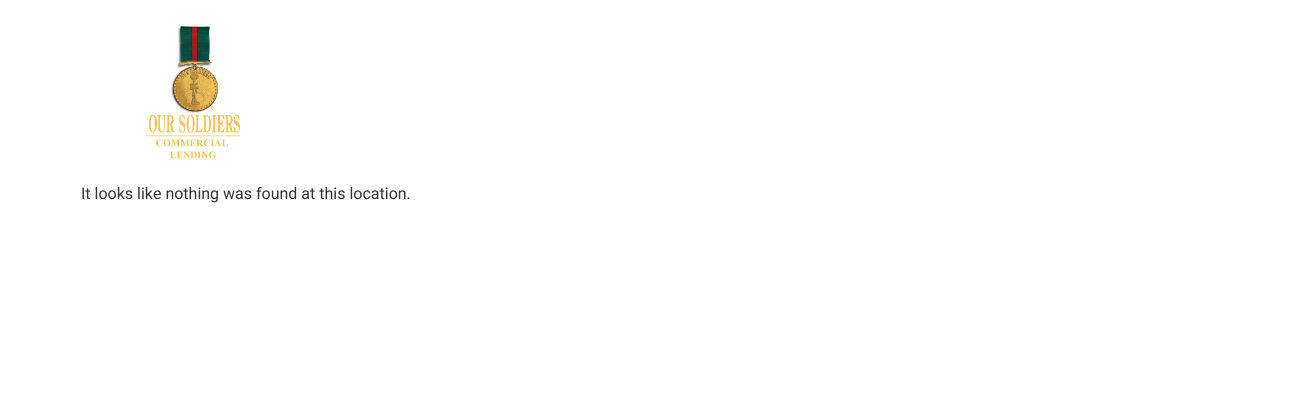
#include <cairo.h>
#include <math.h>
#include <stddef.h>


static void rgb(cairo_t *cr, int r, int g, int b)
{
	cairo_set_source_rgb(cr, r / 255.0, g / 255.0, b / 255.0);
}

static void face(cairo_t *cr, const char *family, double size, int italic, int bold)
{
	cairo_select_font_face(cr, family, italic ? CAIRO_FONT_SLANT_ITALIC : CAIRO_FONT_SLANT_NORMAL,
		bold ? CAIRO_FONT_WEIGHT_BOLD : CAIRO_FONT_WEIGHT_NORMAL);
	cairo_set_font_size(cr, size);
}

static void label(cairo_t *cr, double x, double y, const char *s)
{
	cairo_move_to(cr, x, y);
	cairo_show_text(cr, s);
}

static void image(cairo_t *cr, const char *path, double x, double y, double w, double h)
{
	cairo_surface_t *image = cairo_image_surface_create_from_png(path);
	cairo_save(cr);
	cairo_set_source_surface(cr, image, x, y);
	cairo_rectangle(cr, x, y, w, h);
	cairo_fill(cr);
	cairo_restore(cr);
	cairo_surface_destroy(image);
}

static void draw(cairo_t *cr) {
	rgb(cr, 255, 255, 255);
	cairo_paint(cr);
	image(cr, "image0.png", 146, 26, 95, 133);
	face(cr, "Roboto", 16, 0, 0);
	rgb(cr, 51, 51, 51);
	label(cr, 81, 199, "It looks like nothing was found at this location.");
}

int main(void) {
	cairo_surface_t *surface = cairo_image_surface_create(CAIRO_FORMAT_RGB24, 1301, 407);
	cairo_t *cr = cairo_create(surface);
	cairo_font_options_t *options = cairo_font_options_create();
	cairo_font_options_set_hint_metrics(options, CAIRO_HINT_METRICS_OFF);
	cairo_font_options_set_hint_style(options, CAIRO_HINT_STYLE_NONE);
	cairo_set_font_options(cr, options);
	cairo_set_miter_limit(cr, 4);
	draw(cr);
	cairo_surface_write_to_png(surface, "render.png");
	cairo_font_options_destroy(options);
	cairo_destroy(cr);
	cairo_surface_destroy(surface);
	return 0;
}
